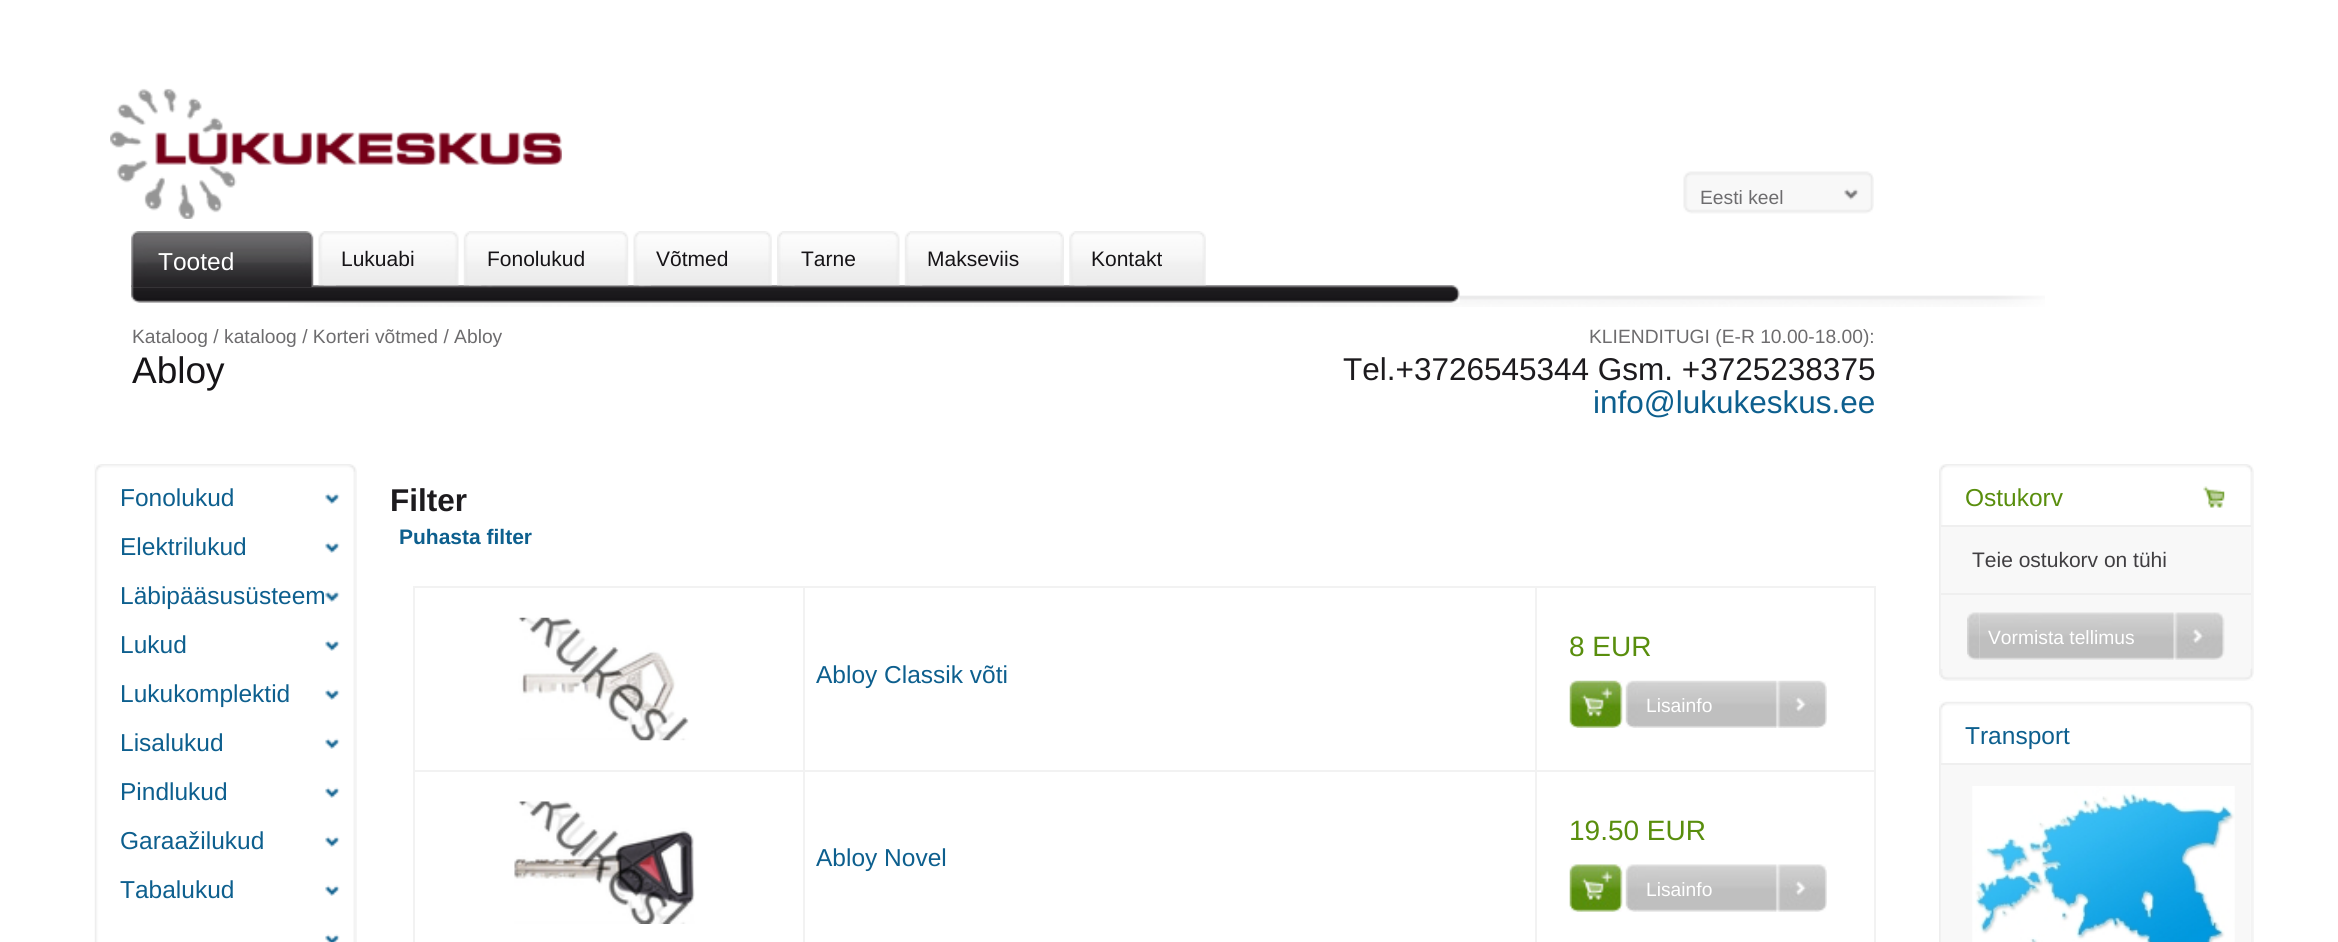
#include <cairo.h>
#include <math.h>
#include <stddef.h>


static void rgb(cairo_t *cr, int r, int g, int b)
{
	cairo_set_source_rgb(cr, r / 255.0, g / 255.0, b / 255.0);
}

static void face(cairo_t *cr, const char *family, double size, int italic, int bold)
{
	cairo_select_font_face(cr, family, italic ? CAIRO_FONT_SLANT_ITALIC : CAIRO_FONT_SLANT_NORMAL,
		bold ? CAIRO_FONT_WEIGHT_BOLD : CAIRO_FONT_WEIGHT_NORMAL);
	cairo_set_font_size(cr, size);
}

static void label(cairo_t *cr, double x, double y, const char *s)
{
	cairo_move_to(cr, x, y);
	cairo_show_text(cr, s);
}

static void rect(cairo_t *cr, double x, double y, double w, double h)
{
	cairo_rectangle(cr, x, y, w, h);
	cairo_fill(cr);
}

static void image(cairo_t *cr, const char *path, double x, double y, double w, double h)
{
	cairo_surface_t *image = cairo_image_surface_create_from_png(path);
	cairo_save(cr);
	cairo_set_source_surface(cr, image, x, y);
	cairo_rectangle(cr, x, y, w, h);
	cairo_fill(cr);
	cairo_restore(cr);
	cairo_surface_destroy(image);
}

static void draw(cairo_t *cr) {
	rgb(cr, 255, 255, 255);
	cairo_paint(cr);
	image(cr, "image0.png", 288, 295, 1757, 12);
	image(cr, "image1.png", 110, 88, 452, 131);
	image(cr, "image2.png", 1683, 171, 191, 43);
	face(cr, "Liberation Sans", 19.25, 0, 0);
	rgb(cr, 109, 108, 110);
	label(cr, 1700, 204, "Eesti keel");
	image(cr, "image3.png", 131, 285, 1329, 18);
	image(cr, "image4.png", 131, 231, 17, 56);
	image(cr, "image5.png", 148, 231, 166, 56);
	face(cr, "Liberation Sans", 24.5, 0, 0);
	rgb(cr, 255, 255, 255);
	label(cr, 158, 270, "Tooted");
	image(cr, "image6.png", 318, 231, 18, 55);
	image(cr, "image7.png", 323, 231, 136, 55);
	face(cr, "Liberation Sans", 21, 0, 0);
	rgb(cr, 22, 20, 23);
	label(cr, 341, 266, "Lukuabi");
	image(cr, "image8.png", 463, 231, 19, 55);
	image(cr, "image9.png", 469, 231, 160, 55);
	label(cr, 487, 266, "Fonolukud");
	image(cr, "image10.png", 633, 231, 18, 55);
	image(cr, "image11.png", 638, 231, 134, 55);
	label(cr, 656, 266, "Võtmed");
	image(cr, "image12.png", 777, 231, 18, 55);
	image(cr, "image13.png", 782, 231, 118, 55);
	label(cr, 801, 266, "Tarne");
	image(cr, "image14.png", 904, 231, 19, 55);
	image(cr, "image15.png", 910, 231, 154, 55);
	label(cr, 927, 266, "Makseviis");
	image(cr, "image16.png", 1069, 231, 18, 55);
	image(cr, "image17.png", 1074, 231, 132, 55);
	label(cr, 1091, 266, "Kontakt");
	face(cr, "Liberation Sans", 19.25, 0, 0);
	rgb(cr, 109, 108, 110);
	label(cr, 132, 343, "Kataloog / kataloog / Korteri võtmed / Abloy");
	face(cr, "Liberation Sans", 37, 0, 0);
	rgb(cr, 22, 20, 23);
	label(cr, 132, 383, "Abloy");
	face(cr, "Liberation Sans", 19.25, 0, 0);
	rgb(cr, 109, 108, 110);
	label(cr, 1589, 343, "KLIENDITUGI (E-R 10.00-18.00):");
	face(cr, "Liberation Sans", 31.5, 0, 0);
	rgb(cr, 29, 27, 30);
	label(cr, 1343, 380, "Tel.+3726545344 Gsm. +3725238375");
	rgb(cr, 13, 95, 142);
	label(cr, 1593, 413, "info@lukukeskus.ee");
	image(cr, "image18.png", 94, 464, 263, 478);
	image(cr, "image19.png", 95, 464, 262, 8);
	image(cr, "image20.png", 325, 493, 15, 11);
	face(cr, "Liberation Sans", 24.5, 0, 0);
	label(cr, 120, 506, "Fonolukud");
	image(cr, "image20.png", 325, 542, 15, 11);
	label(cr, 120, 555, "Elektrilukud");
	image(cr, "image20.png", 325, 591, 15, 11);
	label(cr, 120, 604, "Läbipääsusüsteem");
	image(cr, "image20.png", 325, 640, 15, 11);
	label(cr, 120, 653, "Lukud");
	image(cr, "image20.png", 325, 689, 15, 11);
	label(cr, 120, 702, "Lukukomplektid");
	image(cr, "image20.png", 325, 738, 15, 11);
	label(cr, 120, 751, "Lisalukud");
	image(cr, "image20.png", 325, 787, 15, 11);
	label(cr, 120, 800, "Pindlukud");
	image(cr, "image20.png", 325, 836, 15, 11);
	label(cr, 120, 849, "Garaažilukud");
	image(cr, "image20.png", 325, 885, 15, 11);
	label(cr, 120, 898, "Tabalukud");
	image(cr, "image21.png", 325, 934, 15, 8);
	face(cr, "Liberation Sans", 31.5, 0, 1);
	rgb(cr, 29, 27, 30);
	label(cr, 390, 511, "Filter");
	face(cr, "Liberation Sans", 21, 0, 1);
	rgb(cr, 13, 95, 142);
	label(cr, 399, 544, "Puhasta filter");
	rgb(cr, 242, 242, 242);
	rect(cr, 1535, 586, 341, 2);
	rect(cr, 1535, 770, 341, 2);
	rect(cr, 1535, 770, 2, 172);
	rect(cr, 803, 770, 734, 2);
	rect(cr, 1535, 586, 2, 186);
	rect(cr, 803, 586, 734, 2);
	rect(cr, 803, 770, 2, 172);
	rect(cr, 413, 770, 392, 2);
	rect(cr, 803, 586, 2, 186);
	rect(cr, 413, 586, 392, 2);
	rect(cr, 413, 770, 2, 172);
	rect(cr, 413, 586, 2, 186);
	image(cr, "image22.png", 518, 617, 171, 124);
	face(cr, "Liberation Sans", 24.5, 0, 0);
	rgb(cr, 13, 95, 142);
	label(cr, 816, 683, "Abloy Classik võti");
	rgb(cr, 242, 242, 242);
	rect(cr, 1874, 770, 2, 172);
	rect(cr, 1874, 586, 2, 186);
	face(cr, "Liberation Sans", 28, 0, 0);
	rgb(cr, 89, 142, 13);
	label(cr, 1569, 656, "8 EUR");
	image(cr, "image23.png", 1569, 680, 54, 48);
	image(cr, "image24.png", 1625, 680, 13, 48);
	image(cr, "image25.png", 1638, 680, 189, 48);
	face(cr, "Liberation Sans", 19.25, 0, 0);
	rgb(cr, 255, 255, 255);
	label(cr, 1646, 712, "Lisainfo");
	image(cr, "image26.png", 514, 801, 181, 123);
	face(cr, "Liberation Sans", 24.5, 0, 0);
	rgb(cr, 13, 95, 142);
	label(cr, 816, 866, "Abloy Novel");
	face(cr, "Liberation Sans", 28, 0, 0);
	rgb(cr, 89, 142, 13);
	label(cr, 1569, 840, "19.50 EUR");
	image(cr, "image27.png", 1569, 864, 54, 48);
	image(cr, "image28.png", 1625, 864, 13, 48);
	image(cr, "image29.png", 1638, 864, 189, 48);
	face(cr, "Liberation Sans", 19.25, 0, 0);
	rgb(cr, 255, 255, 255);
	label(cr, 1646, 896, "Lisainfo");
	image(cr, "image30.png", 1939, 472, 315, 209);
	image(cr, "image31.png", 1939, 464, 315, 8);
	image(cr, "image32.png", 2203, 486, 22, 22);
	face(cr, "Liberation Sans", 24.5, 0, 0);
	rgb(cr, 89, 142, 13);
	label(cr, 1965, 506, "Ostukorv");
	rgb(cr, 248, 248, 248);
	rect(cr, 1942, 527, 308, 66);
	rgb(cr, 239, 239, 239);
	rect(cr, 1941, 525, 310, 2);
	face(cr, "Liberation Sans", 21, 0, 0);
	rgb(cr, 64, 62, 65);
	label(cr, 1972, 567, "Teie ostukorv on tühi");
	image(cr, "image35.png", 1939, 668, 315, 13);
	rgb(cr, 248, 248, 248);
	rect(cr, 1941, 595, 310, 74);
	rgb(cr, 239, 239, 239);
	rect(cr, 1941, 593, 310, 2);
	image(cr, "image33.png", 1967, 612, 13, 48);
	image(cr, "image34.png", 1979, 612, 246, 48);
	face(cr, "Liberation Sans", 19.25, 0, 0);
	rgb(cr, 255, 255, 255);
	label(cr, 1988, 644, "Vormista tellimus");
	image(cr, "image36.png", 1939, 701, 315, 241);
	image(cr, "image37.png", 1939, 701, 315, 9);
	face(cr, "Liberation Sans", 24.5, 0, 0);
	rgb(cr, 13, 95, 142);
	label(cr, 1965, 744, "Transport");
	rgb(cr, 248, 248, 248);
	rect(cr, 1942, 765, 308, 177);
	rgb(cr, 239, 239, 239);
	rect(cr, 1941, 763, 310, 2);
	image(cr, "image38.png", 1972, 786, 263, 156);
}

int main(void) {
	cairo_surface_t *surface = cairo_image_surface_create(CAIRO_FORMAT_RGB24, 2338, 942);
	cairo_t *cr = cairo_create(surface);
	cairo_font_options_t *options = cairo_font_options_create();
	cairo_font_options_set_hint_metrics(options, CAIRO_HINT_METRICS_OFF);
	cairo_font_options_set_hint_style(options, CAIRO_HINT_STYLE_NONE);
	cairo_set_font_options(cr, options);
	cairo_set_miter_limit(cr, 4);
	draw(cr);
	cairo_surface_write_to_png(surface, "render.png");
	cairo_font_options_destroy(options);
	cairo_destroy(cr);
	cairo_surface_destroy(surface);
	return 0;
}
